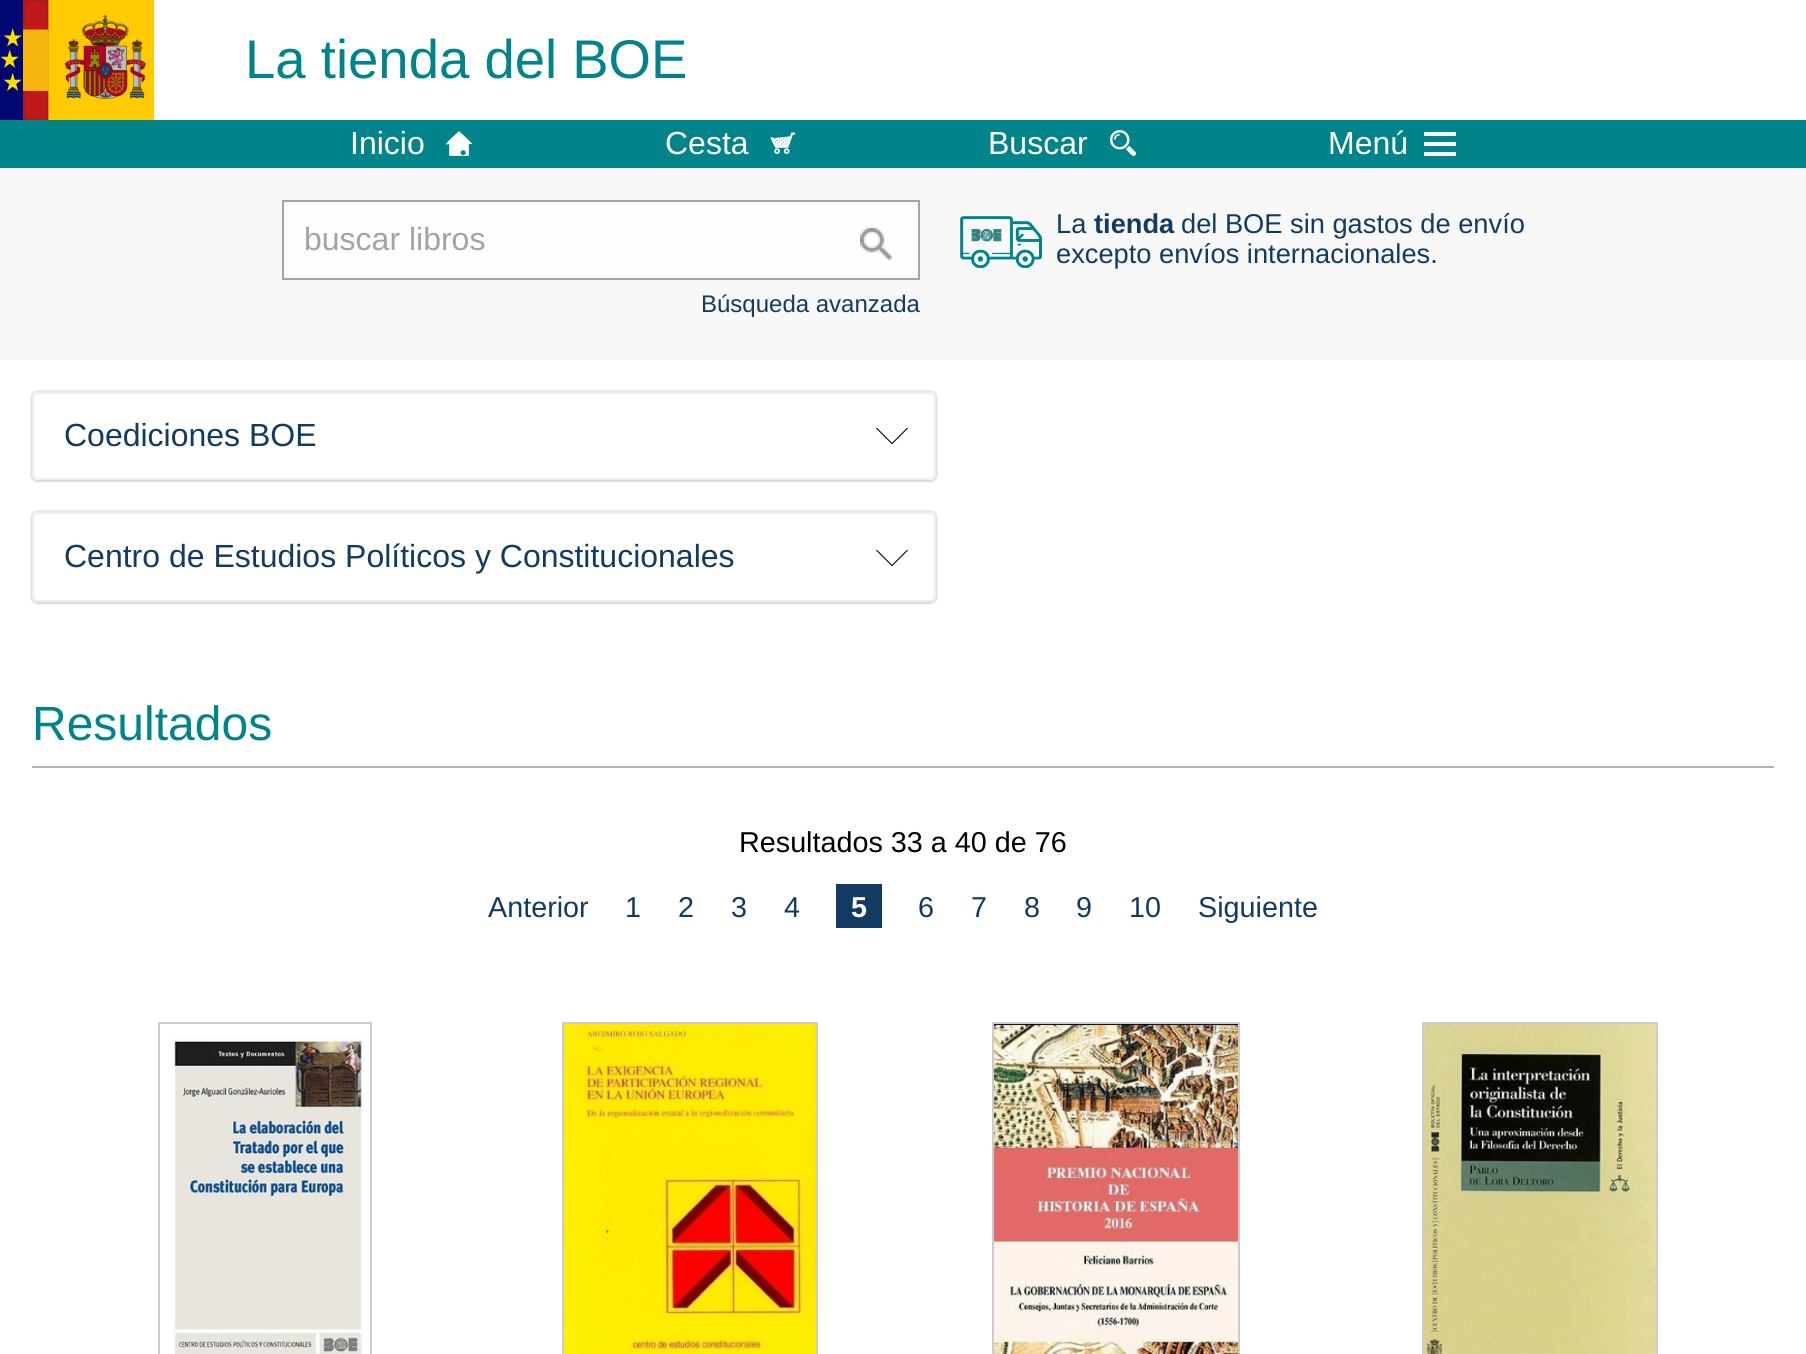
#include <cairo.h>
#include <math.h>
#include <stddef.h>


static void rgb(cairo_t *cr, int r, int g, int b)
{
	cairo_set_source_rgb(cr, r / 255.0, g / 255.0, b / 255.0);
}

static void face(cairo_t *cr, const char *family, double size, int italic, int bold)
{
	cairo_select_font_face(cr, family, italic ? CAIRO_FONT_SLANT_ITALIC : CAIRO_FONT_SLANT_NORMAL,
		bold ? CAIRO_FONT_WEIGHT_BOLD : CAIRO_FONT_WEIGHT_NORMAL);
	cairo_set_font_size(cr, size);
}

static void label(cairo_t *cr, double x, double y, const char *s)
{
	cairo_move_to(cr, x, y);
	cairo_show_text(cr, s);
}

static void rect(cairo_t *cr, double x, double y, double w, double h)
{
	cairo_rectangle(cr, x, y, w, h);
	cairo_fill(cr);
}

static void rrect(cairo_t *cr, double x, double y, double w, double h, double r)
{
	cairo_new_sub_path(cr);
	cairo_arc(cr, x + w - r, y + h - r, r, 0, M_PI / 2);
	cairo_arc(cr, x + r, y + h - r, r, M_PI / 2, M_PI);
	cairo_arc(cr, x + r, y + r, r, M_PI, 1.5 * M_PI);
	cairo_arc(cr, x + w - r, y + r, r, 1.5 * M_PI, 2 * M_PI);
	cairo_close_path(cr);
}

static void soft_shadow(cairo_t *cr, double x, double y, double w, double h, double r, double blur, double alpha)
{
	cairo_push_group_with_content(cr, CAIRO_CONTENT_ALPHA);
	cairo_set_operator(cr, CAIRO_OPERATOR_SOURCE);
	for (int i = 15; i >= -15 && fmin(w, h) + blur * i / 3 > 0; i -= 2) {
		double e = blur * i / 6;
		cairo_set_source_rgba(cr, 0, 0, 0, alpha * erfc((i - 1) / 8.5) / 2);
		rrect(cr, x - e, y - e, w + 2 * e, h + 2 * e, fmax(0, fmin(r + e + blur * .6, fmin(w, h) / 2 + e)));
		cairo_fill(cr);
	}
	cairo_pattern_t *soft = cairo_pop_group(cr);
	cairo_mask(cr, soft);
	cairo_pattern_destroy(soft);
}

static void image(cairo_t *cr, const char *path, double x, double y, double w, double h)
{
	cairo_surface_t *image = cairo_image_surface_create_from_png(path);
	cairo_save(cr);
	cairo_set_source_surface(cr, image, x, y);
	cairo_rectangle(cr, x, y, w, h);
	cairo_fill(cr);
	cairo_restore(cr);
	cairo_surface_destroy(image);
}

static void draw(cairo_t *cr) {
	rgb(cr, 255, 255, 255);
	cairo_paint(cr);
	image(cr, "image0.png", 0, 0, 154, 120);
	face(cr, "Liberation Sans", 54.5, 0, 0);
	rgb(cr, 0, 132, 137);
	label(cr, 245, 78, "La tienda del BOE");
	rect(cr, 0, 120, 1806, 48);
	face(cr, "Liberation Sans", 32, 0, 0);
	rgb(cr, 255, 255, 255);
	label(cr, 350, 154, "Inicio");
	image(cr, "image1.png", 446, 131, 26, 25);
	label(cr, 665, 154, "Cesta");
	image(cr, "image2.png", 770, 132, 26, 22);
	label(cr, 988, 154, "Buscar");
	image(cr, "image3.png", 1110, 130, 26, 26);
	label(cr, 1328, 154, "Menú");
	rect(cr, 1424, 132, 32, 4);
	rect(cr, 1424, 142, 32, 4);
	rect(cr, 1424, 152, 32, 4);
	rgb(cr, 248, 248, 248);
	rect(cr, 0, 168, 1806, 192);
	rgb(cr, 253, 253, 253);
	cairo_rectangle(cr, 283, 201, 636, 78);
	cairo_fill_preserve(cr);
	rgb(cr, 164, 164, 164);
	cairo_stroke(cr);
	rgb(cr, 163, 163, 163);
	label(cr, 304, 250, "buscar libros");
	image(cr, "image4.png", 860, 228, 32, 32);
	face(cr, "Liberation Sans", 24, 0, 0);
	rgb(cr, 18, 58, 99);
	label(cr, 701, 312, "Búsqueda avanzada");
	image(cr, "image5.png", 960, 216, 82, 52);
	face(cr, "Liberation Sans", 27.25, 0, 0);
	label(cr, 1056, 233, "La");
	face(cr, "Liberation Sans", 27.25, 0, 1);
	label(cr, 1094, 233, "tienda");
	face(cr, "Liberation Sans", 27.25, 0, 0);
	label(cr, 1181, 233, "del BOE sin gastos de envío");
	label(cr, 1056, 263, "excepto envíos internacionales.");
	rrect(cr, 31, 391, 906, 90, 7);
	rgb(cr, 235, 235, 235);
	cairo_stroke(cr);
	rgb(cr, 0, 0, 0);
	soft_shadow(cr, 32, 394, 904, 88, 6, 1, 0.08);
	rgb(cr, 255, 255, 255);
	rrect(cr, 32, 392, 904, 88, 6);
	cairo_fill(cr);
	image(cr, "image6.png", 876, 427, 32, 18);
	rrect(cr, 33, 393, 902, 86, 5);
	rgb(cr, 238, 238, 238);
	cairo_stroke(cr);
	face(cr, "Liberation Sans", 32, 0, 0);
	rgb(cr, 18, 58, 99);
	label(cr, 64, 446, "Coediciones BOE");
	rrect(cr, 31, 511, 906, 92, 7);
	rgb(cr, 235, 235, 235);
	cairo_stroke(cr);
	rgb(cr, 0, 0, 0);
	soft_shadow(cr, 32, 514, 904, 90, 6, 1, 0.08);
	rgb(cr, 255, 255, 255);
	rrect(cr, 32, 512, 904, 90, 6);
	cairo_fill(cr);
	image(cr, "image6.png", 876, 549, 32, 18);
	rrect(cr, 33, 513, 902, 88, 5);
	rgb(cr, 238, 238, 238);
	cairo_stroke(cr);
	rgb(cr, 18, 58, 99);
	label(cr, 64, 567, "Centro de Estudios Políticos y Constitucionales");
	rgb(cr, 177, 179, 179);
	rect(cr, 32, 766, 1742, 2);
	face(cr, "Liberation Sans", 48, 0, 0);
	rgb(cr, 0, 132, 137);
	label(cr, 32, 740, "Resultados");
	face(cr, "Liberation Sans", 28.75, 0, 0);
	rgb(cr, 0, 0, 0);
	label(cr, 739, 852, "Resultados 33 a 40 de 76");
	rgb(cr, 18, 58, 99);
	label(cr, 488, 917, "Anterior");
	label(cr, 625, 917, "1");
	label(cr, 678, 917, "2");
	label(cr, 731, 917, "3");
	label(cr, 784, 917, "4");
	rect(cr, 836, 884, 46, 44);
	face(cr, "Liberation Sans", 28.75, 0, 1);
	rgb(cr, 255, 255, 255);
	label(cr, 851, 917, "5");
	face(cr, "Liberation Sans", 28.75, 0, 0);
	rgb(cr, 18, 58, 99);
	label(cr, 918, 917, "6");
	label(cr, 971, 917, "7");
	label(cr, 1024, 917, "8");
	label(cr, 1076, 917, "9");
	label(cr, 1129, 917, "10");
	label(cr, 1198, 917, "Siguiente");
	cairo_rectangle(cr, 159, 1023, 212, 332);
	rgb(cr, 204, 204, 204);
	cairo_stroke(cr);
	image(cr, "image7.png", 172, 1036, 192, 318);
	cairo_rectangle(cr, 563, 1023, 254, 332);
	cairo_stroke(cr);
	image(cr, "image8.png", 564, 1024, 252, 330);
	cairo_rectangle(cr, 993, 1023, 246, 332);
	cairo_stroke(cr);
	image(cr, "image9.png", 994, 1024, 244, 330);
	cairo_rectangle(cr, 1423, 1023, 234, 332);
	cairo_stroke(cr);
	image(cr, "image10.png", 1424, 1024, 232, 330);
}

int main(void) {
	cairo_surface_t *surface = cairo_image_surface_create(CAIRO_FORMAT_RGB24, 1806, 1354);
	cairo_t *cr = cairo_create(surface);
	cairo_font_options_t *options = cairo_font_options_create();
	cairo_font_options_set_hint_metrics(options, CAIRO_HINT_METRICS_OFF);
	cairo_font_options_set_hint_style(options, CAIRO_HINT_STYLE_NONE);
	cairo_set_font_options(cr, options);
	cairo_set_miter_limit(cr, 4);
	draw(cr);
	cairo_surface_write_to_png(surface, "render.png");
	cairo_font_options_destroy(options);
	cairo_destroy(cr);
	cairo_surface_destroy(surface);
	return 0;
}
